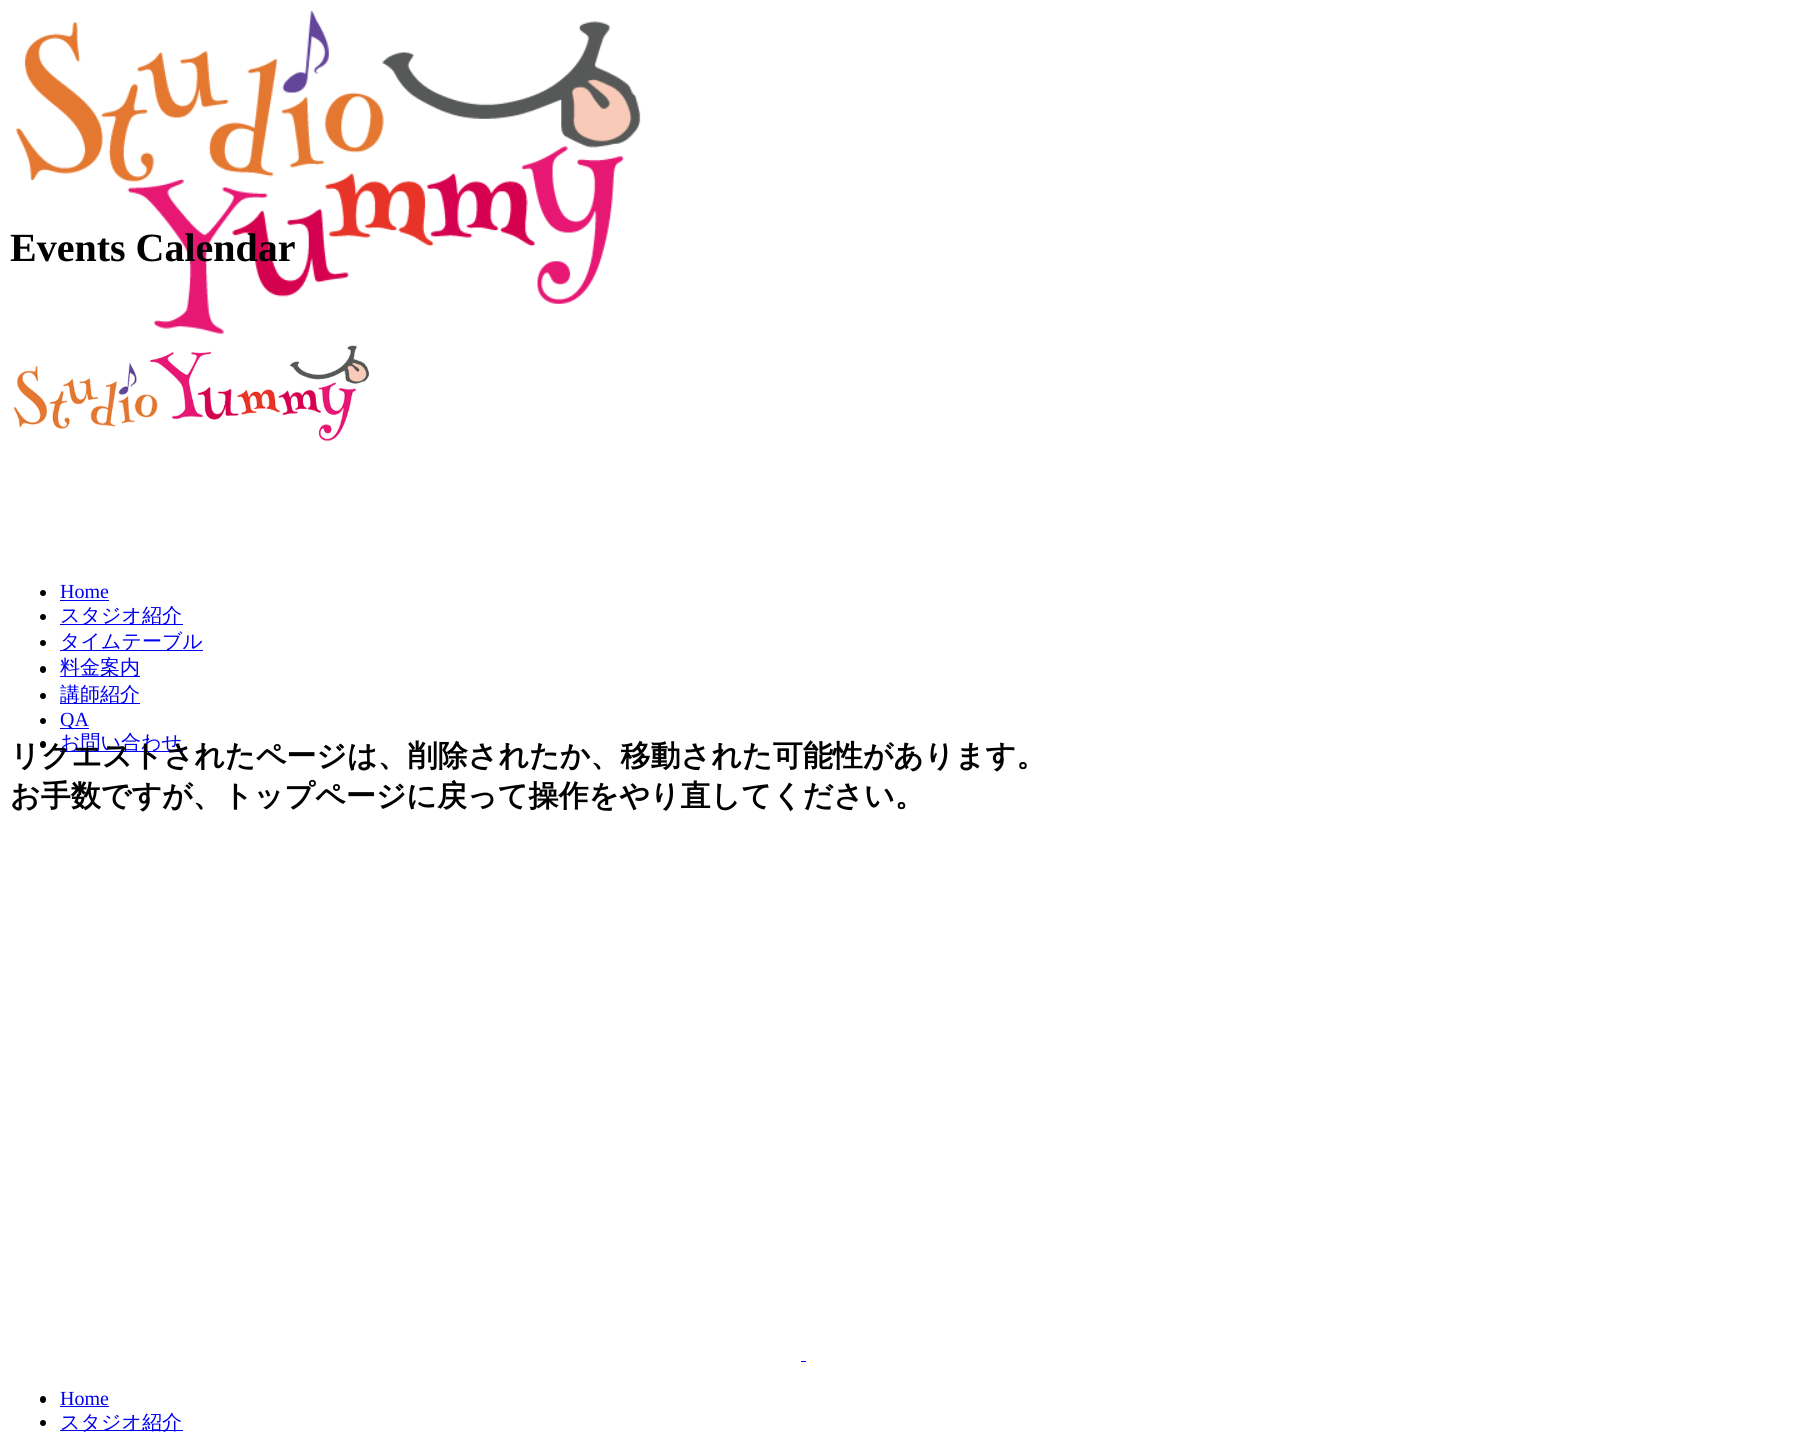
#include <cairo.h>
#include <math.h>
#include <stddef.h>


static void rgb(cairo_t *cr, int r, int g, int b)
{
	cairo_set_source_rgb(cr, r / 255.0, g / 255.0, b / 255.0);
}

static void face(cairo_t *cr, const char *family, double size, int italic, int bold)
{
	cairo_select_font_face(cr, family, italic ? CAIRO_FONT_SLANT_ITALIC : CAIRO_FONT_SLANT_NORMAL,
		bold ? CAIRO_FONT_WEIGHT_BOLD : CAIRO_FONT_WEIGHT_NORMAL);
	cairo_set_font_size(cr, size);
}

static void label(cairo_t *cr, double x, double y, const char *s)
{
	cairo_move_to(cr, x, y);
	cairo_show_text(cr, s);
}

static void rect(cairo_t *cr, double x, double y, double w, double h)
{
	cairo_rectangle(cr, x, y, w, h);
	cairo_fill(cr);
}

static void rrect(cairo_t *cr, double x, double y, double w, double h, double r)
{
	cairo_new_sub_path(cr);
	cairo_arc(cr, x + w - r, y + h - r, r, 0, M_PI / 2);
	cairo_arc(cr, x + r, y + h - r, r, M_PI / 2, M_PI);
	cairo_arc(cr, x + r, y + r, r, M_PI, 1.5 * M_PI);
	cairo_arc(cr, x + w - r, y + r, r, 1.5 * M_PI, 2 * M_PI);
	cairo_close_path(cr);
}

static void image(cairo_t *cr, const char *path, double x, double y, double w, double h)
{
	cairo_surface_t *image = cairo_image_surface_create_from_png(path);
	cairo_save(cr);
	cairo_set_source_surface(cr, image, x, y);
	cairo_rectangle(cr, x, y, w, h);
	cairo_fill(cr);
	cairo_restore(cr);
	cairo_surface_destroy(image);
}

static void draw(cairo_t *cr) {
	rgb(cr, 255, 255, 255);
	cairo_paint(cr);
	image(cr, "image0.png", 16, 10, 625, 324);
	face(cr, "Liberation Serif", 40, 0, 1);
	rgb(cr, 0, 0, 0);
	label(cr, 10, 261, "Events Calendar");
	image(cr, "image1.png", 13, 345, 356, 97);
	cairo_arc(cr, 43, 593, 3, 0, 2 * M_PI);
	cairo_fill(cr);
	face(cr, "Liberation Serif", 20, 0, 0);
	rgb(cr, 0, 0, 238);
	label(cr, 60, 598, "Home");
	rect(cr, 60, 600, 49, 1);
	rgb(cr, 0, 0, 0);
	cairo_new_path(cr);
	cairo_arc(cr, 43, 617, 3, 0, 2 * M_PI);
	cairo_fill(cr);
	rgb(cr, 0, 0, 238);
	rect(cr, 60, 624, 123, 1);
	face(cr, "WenQuanYi Zen Hei Medium", 20, 0, 0);
	label(cr, 60, 622, "スタジオ紹介");
	rgb(cr, 0, 0, 0);
	cairo_new_path(cr);
	cairo_arc(cr, 43, 643, 3, 0, 2 * M_PI);
	cairo_fill(cr);
	rgb(cr, 0, 0, 238);
	rect(cr, 60, 650, 143, 1);
	label(cr, 60, 648, "タイムテーブル");
	rgb(cr, 0, 0, 0);
	rrect(cr, 40, 666, 6, 7, 3);
	cairo_fill(cr);
	rgb(cr, 0, 0, 238);
	rect(cr, 60, 676, 80, 1);
	label(cr, 60, 674, "料金案内");
	rgb(cr, 0, 0, 0);
	cairo_new_path(cr);
	cairo_arc(cr, 43, 696, 3, 0, 2 * M_PI);
	cairo_fill(cr);
	rgb(cr, 0, 0, 238);
	rect(cr, 60, 703, 80, 1);
	label(cr, 60, 701, "講師紹介");
	rgb(cr, 0, 0, 0);
	cairo_new_path(cr);
	cairo_arc(cr, 43, 721, 3, 0, 2 * M_PI);
	cairo_fill(cr);
	rgb(cr, 0, 0, 238);
	rect(cr, 60, 728, 29, 1);
	face(cr, "Liberation Serif", 20, 0, 0);
	label(cr, 60, 726, "QA");
	rgb(cr, 0, 0, 0);
	rrect(cr, 40, 741, 6, 7, 3);
	cairo_fill(cr);
	rgb(cr, 0, 0, 238);
	rect(cr, 60, 751, 123, 1);
	face(cr, "WenQuanYi Zen Hei Medium", 20, 0, 0);
	label(cr, 60, 749, "お問い合わせ");
	face(cr, "WenQuanYi Zen Hei", 30, 0, 1);
	rgb(cr, 0, 0, 0);
	label(cr, 10, 766, "リクエストされたページは、削除されたか、移動された可能性があります。");
	label(cr, 10, 806, "お手数ですが、トップページに戻って操作をやり直してください。");
	rgb(cr, 0, 0, 238);
	rect(cr, 801, 1361, 5, 1);
	rgb(cr, 0, 0, 0);
	rrect(cr, 40, 1396, 6, 7, 3);
	cairo_fill(cr);
	face(cr, "Liberation Serif", 20, 0, 0);
	rgb(cr, 0, 0, 238);
	label(cr, 60, 1405, "Home");
	rect(cr, 60, 1406, 49, 1);
	rgb(cr, 0, 0, 0);
	cairo_new_path(cr);
	cairo_arc(cr, 43, 1423, 3, 0, 2 * M_PI);
	cairo_fill(cr);
	rgb(cr, 0, 0, 238);
	rect(cr, 60, 1430, 123, 1);
	face(cr, "WenQuanYi Zen Hei Medium", 20, 0, 0);
	label(cr, 60, 1429, "スタジオ紹介");
}

int main(void) {
	cairo_surface_t *surface = cairo_image_surface_create(CAIRO_FORMAT_RGB24, 1812, 1433);
	cairo_t *cr = cairo_create(surface);
	cairo_font_options_t *options = cairo_font_options_create();
	cairo_font_options_set_hint_metrics(options, CAIRO_HINT_METRICS_OFF);
	cairo_font_options_set_hint_style(options, CAIRO_HINT_STYLE_NONE);
	cairo_set_font_options(cr, options);
	cairo_set_miter_limit(cr, 4);
	draw(cr);
	cairo_surface_write_to_png(surface, "render.png");
	cairo_font_options_destroy(options);
	cairo_destroy(cr);
	cairo_surface_destroy(surface);
	return 0;
}
